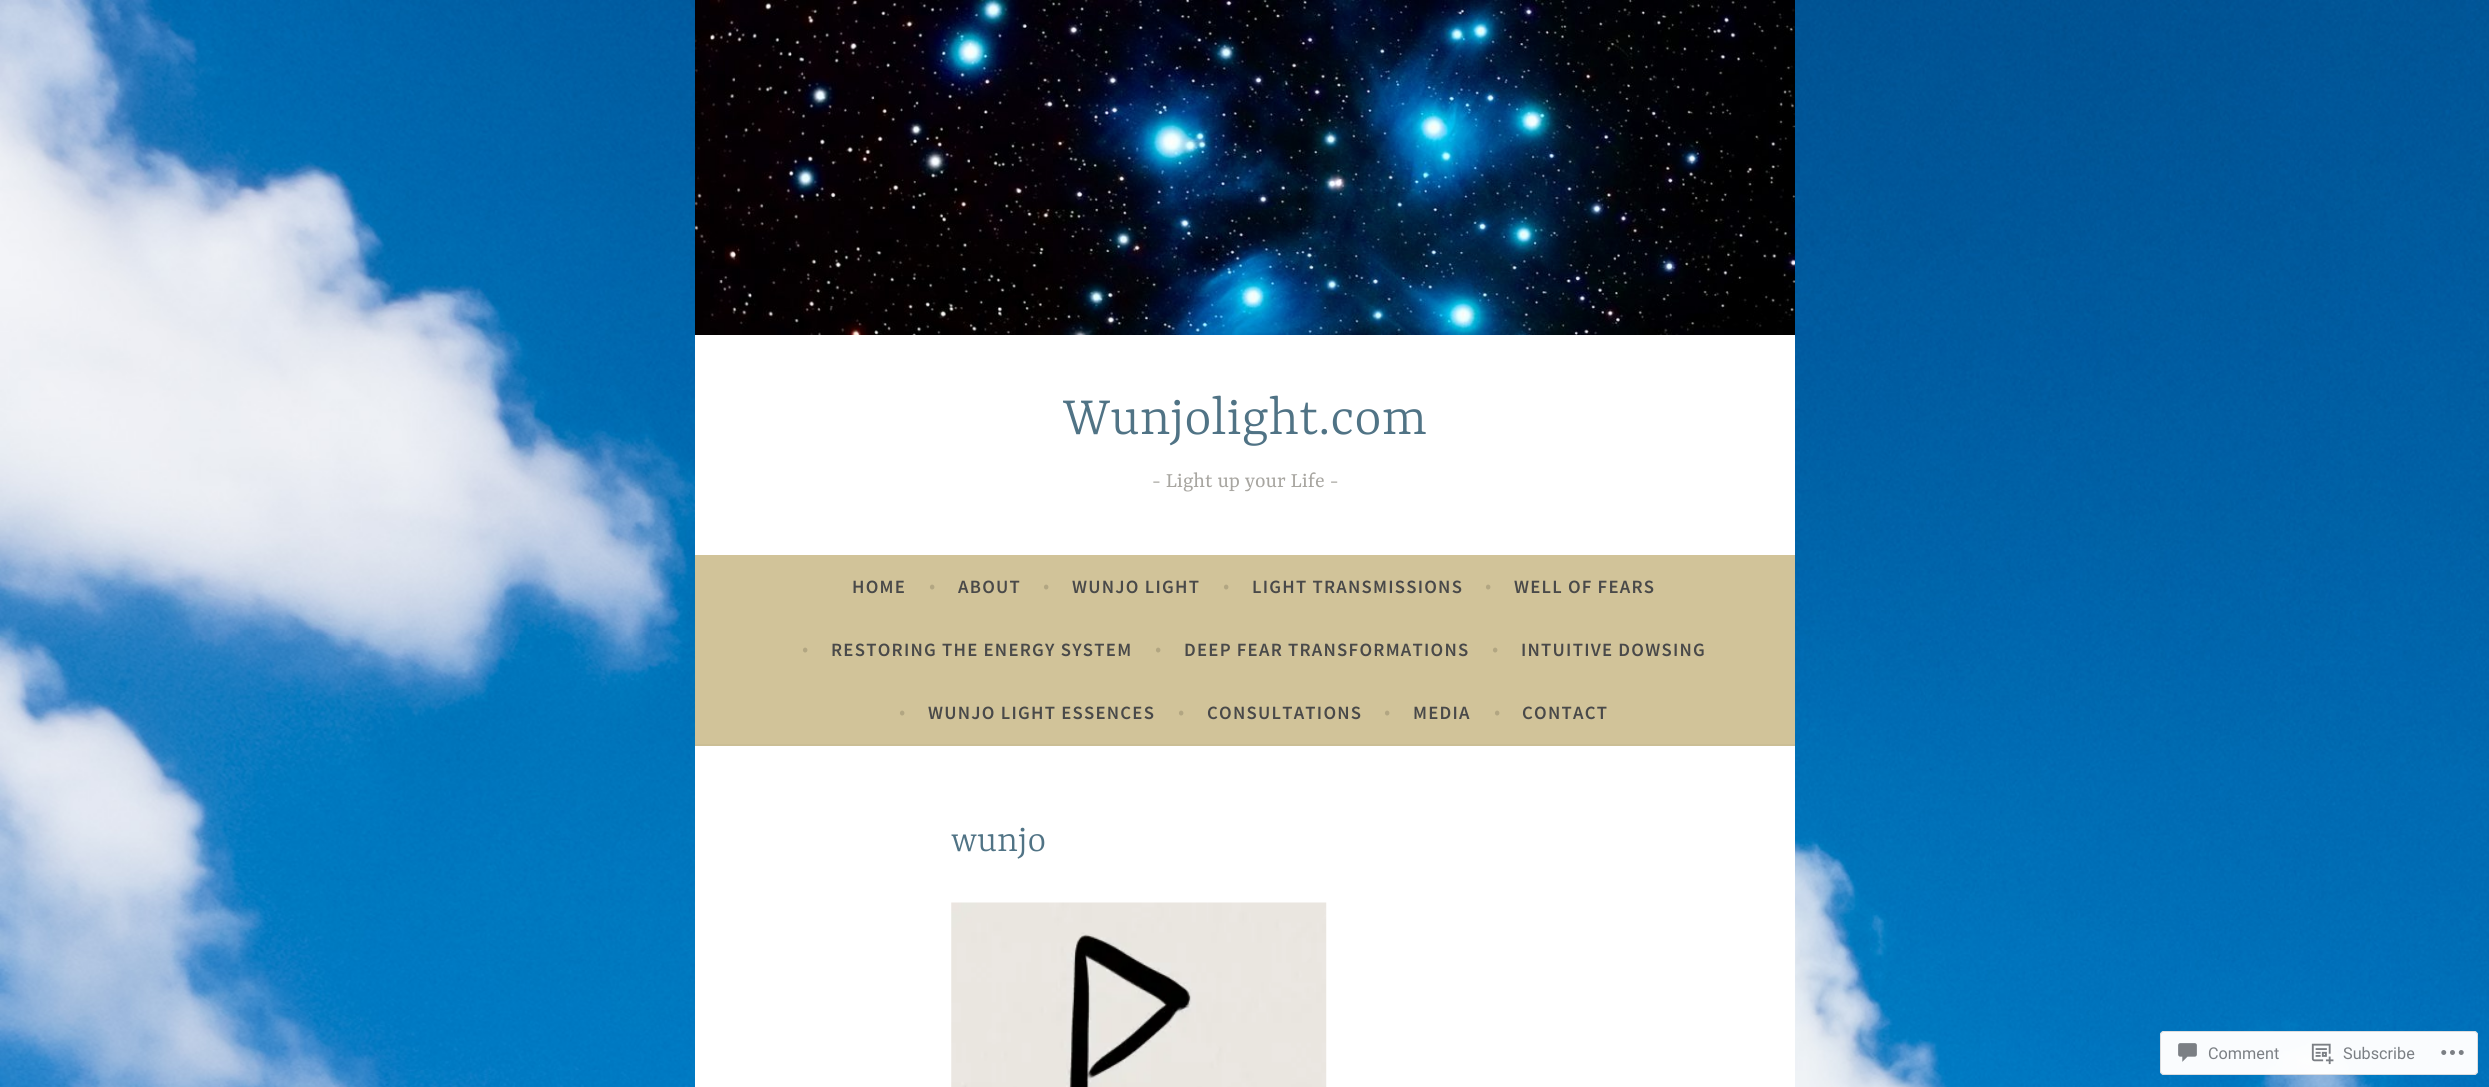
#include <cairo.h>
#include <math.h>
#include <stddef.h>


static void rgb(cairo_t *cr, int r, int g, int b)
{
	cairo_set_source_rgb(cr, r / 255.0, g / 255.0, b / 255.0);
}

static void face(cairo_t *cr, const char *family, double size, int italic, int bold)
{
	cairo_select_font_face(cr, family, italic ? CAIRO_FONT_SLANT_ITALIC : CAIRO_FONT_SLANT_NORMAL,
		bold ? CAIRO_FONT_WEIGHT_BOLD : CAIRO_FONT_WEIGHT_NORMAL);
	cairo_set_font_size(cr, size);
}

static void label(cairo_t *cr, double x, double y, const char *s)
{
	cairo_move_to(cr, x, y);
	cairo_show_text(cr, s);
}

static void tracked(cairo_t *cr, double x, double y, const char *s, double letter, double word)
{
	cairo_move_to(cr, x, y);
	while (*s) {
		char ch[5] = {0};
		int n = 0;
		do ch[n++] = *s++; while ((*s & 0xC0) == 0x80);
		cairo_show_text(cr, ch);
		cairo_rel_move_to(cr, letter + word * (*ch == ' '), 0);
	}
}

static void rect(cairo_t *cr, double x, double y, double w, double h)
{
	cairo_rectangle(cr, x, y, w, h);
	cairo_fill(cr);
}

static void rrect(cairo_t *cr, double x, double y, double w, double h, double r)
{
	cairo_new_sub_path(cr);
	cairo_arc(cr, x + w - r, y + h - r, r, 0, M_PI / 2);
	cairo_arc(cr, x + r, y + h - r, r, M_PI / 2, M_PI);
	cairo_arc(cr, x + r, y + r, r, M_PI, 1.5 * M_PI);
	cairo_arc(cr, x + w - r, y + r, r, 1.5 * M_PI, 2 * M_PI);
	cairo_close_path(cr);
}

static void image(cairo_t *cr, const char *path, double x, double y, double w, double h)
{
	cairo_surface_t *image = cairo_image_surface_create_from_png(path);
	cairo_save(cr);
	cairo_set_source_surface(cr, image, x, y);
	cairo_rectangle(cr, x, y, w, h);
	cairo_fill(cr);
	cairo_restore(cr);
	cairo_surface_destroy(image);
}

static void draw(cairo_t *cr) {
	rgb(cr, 255, 255, 255);
	cairo_paint(cr);
	image(cr, "image0.png", 0, 0, 2489, 1087);
	image(cr, "image1.png", 695, 0, 1100, 335);
	rgb(cr, 255, 255, 255);
	rect(cr, 695, 335, 1100, 220);
	face(cr, "Yrsa Light", 58.75, 0, 0);
	rgb(cr, 80, 115, 133);
	label(cr, 1063, 434, "Wunjolight.com");
	face(cr, "Yrsa", 22.5, 0, 0);
	rgb(cr, 168, 166, 161);
	label(cr, 1152, 487, "- Light up your Life -");
	rgb(cr, 209, 195, 153);
	rect(cr, 695, 555, 1100, 191);
	cairo_set_source_rgba(cr, 0, 0, 0, 0.03);
	rect(cr, 695, 744, 1100, 2);
	face(cr, "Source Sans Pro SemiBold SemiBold", 18.75, 0, 0);
	rgb(cr, 73, 73, 73);
	tracked(cr, 852, 593, "HOME", 1.25, 0);
	face(cr, "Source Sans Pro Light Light", 22.5, 0, 0);
	rgb(cr, 178, 166, 130);
	label(cr, 929, 593, "•");
	face(cr, "Source Sans Pro SemiBold SemiBold", 18.75, 0, 0);
	rgb(cr, 73, 73, 73);
	tracked(cr, 958, 593, "ABOUT", 1.25, 0);
	face(cr, "Source Sans Pro Light Light", 22.5, 0, 0);
	rgb(cr, 178, 166, 130);
	label(cr, 1043, 593, "•");
	face(cr, "Source Sans Pro SemiBold SemiBold", 18.75, 0, 0);
	rgb(cr, 73, 73, 73);
	tracked(cr, 1072, 593, "WUNJO LIGHT", 1.25, 0);
	face(cr, "Source Sans Pro Light Light", 22.5, 0, 0);
	rgb(cr, 178, 166, 130);
	label(cr, 1223, 593, "•");
	face(cr, "Source Sans Pro SemiBold SemiBold", 18.75, 0, 0);
	rgb(cr, 73, 73, 73);
	tracked(cr, 1252, 593, "LIGHT TRANSMISSIONS", 1.25, 0);
	face(cr, "Source Sans Pro Light Light", 22.5, 0, 0);
	rgb(cr, 178, 166, 130);
	label(cr, 1485, 593, "•");
	face(cr, "Source Sans Pro SemiBold SemiBold", 18.75, 0, 0);
	rgb(cr, 73, 73, 73);
	tracked(cr, 1514, 593, "WELL OF FEARS", 1.25, 0);
	face(cr, "Source Sans Pro Light Light", 22.5, 0, 0);
	rgb(cr, 178, 166, 130);
	label(cr, 802, 656, "•");
	face(cr, "Source Sans Pro SemiBold SemiBold", 18.75, 0, 0);
	rgb(cr, 73, 73, 73);
	tracked(cr, 831, 656, "RESTORING THE ENERGY SYSTEM", 1.25, 0);
	face(cr, "Source Sans Pro Light Light", 22.5, 0, 0);
	rgb(cr, 178, 166, 130);
	label(cr, 1155, 656, "•");
	face(cr, "Source Sans Pro SemiBold SemiBold", 18.75, 0, 0);
	rgb(cr, 73, 73, 73);
	tracked(cr, 1184, 656, "DEEP FEAR TRANSFORMATIONS", 1.25, 0);
	face(cr, "Source Sans Pro Light Light", 22.5, 0, 0);
	rgb(cr, 178, 166, 130);
	label(cr, 1492, 656, "•");
	face(cr, "Source Sans Pro SemiBold SemiBold", 18.75, 0, 0);
	rgb(cr, 73, 73, 73);
	tracked(cr, 1521, 656, "INTUITIVE DOWSING", 1.25, 0);
	face(cr, "Source Sans Pro Light Light", 22.5, 0, 0);
	rgb(cr, 178, 166, 130);
	label(cr, 899, 719, "•");
	face(cr, "Source Sans Pro SemiBold SemiBold", 18.75, 0, 0);
	rgb(cr, 73, 73, 73);
	tracked(cr, 928, 719, "WUNJO LIGHT ESSENCES", 1.25, 0);
	face(cr, "Source Sans Pro Light Light", 22.5, 0, 0);
	rgb(cr, 178, 166, 130);
	label(cr, 1178, 719, "•");
	face(cr, "Source Sans Pro SemiBold SemiBold", 18.75, 0, 0);
	rgb(cr, 73, 73, 73);
	tracked(cr, 1207, 719, "CONSULTATIONS", 1.25, 0);
	face(cr, "Source Sans Pro Light Light", 22.5, 0, 0);
	rgb(cr, 178, 166, 130);
	label(cr, 1384, 719, "•");
	face(cr, "Source Sans Pro SemiBold SemiBold", 18.75, 0, 0);
	rgb(cr, 73, 73, 73);
	tracked(cr, 1413, 719, "MEDIA", 1.25, 0);
	face(cr, "Source Sans Pro Light Light", 22.5, 0, 0);
	rgb(cr, 178, 166, 130);
	label(cr, 1494, 719, "•");
	face(cr, "Source Sans Pro SemiBold SemiBold", 18.75, 0, 0);
	rgb(cr, 73, 73, 73);
	tracked(cr, 1522, 719, "CONTACT", 1.25, 0);
	rgb(cr, 255, 255, 255);
	rect(cr, 695, 746, 1100, 341);
	face(cr, "Yrsa Light", 40, 0, 0);
	rgb(cr, 80, 115, 133);
	label(cr, 951, 851, "wunjo");
	image(cr, "image2.png", 951, 902, 376, 185);
	cairo_set_source_rgba(cr, 1, 1, 1, 0.98);
	rrect(cr, 2160, 1031, 318, 44, 4);
	cairo_fill(cr);
	rrect(cr, 2160.5, 1031.5, 317, 43, 3.5);
	cairo_set_source_rgba(cr, 0.863, 0.863, 0.871, 0.98);
	cairo_set_line_width(cr, 1);
	cairo_stroke(cr);
	image(cr, "image3.png", 2178, 1043, 19, 19);
	face(cr, "Roboto", 16.25, 0, 0);
	rgb(cr, 123, 127, 132);
	label(cr, 2208, 1059, "Comment");
	image(cr, "image4.png", 2311, 1043, 23, 22);
	label(cr, 2343, 1059, "Subscribe");
	image(cr, "image5.png", 2441, 1050, 23, 5);
}

int main(void) {
	cairo_surface_t *surface = cairo_image_surface_create(CAIRO_FORMAT_RGB24, 2489, 1087);
	cairo_t *cr = cairo_create(surface);
	cairo_font_options_t *options = cairo_font_options_create();
	cairo_font_options_set_hint_metrics(options, CAIRO_HINT_METRICS_OFF);
	cairo_font_options_set_hint_style(options, CAIRO_HINT_STYLE_NONE);
	cairo_set_font_options(cr, options);
	cairo_set_miter_limit(cr, 4);
	draw(cr);
	cairo_surface_write_to_png(surface, "render.png");
	cairo_font_options_destroy(options);
	cairo_destroy(cr);
	cairo_surface_destroy(surface);
	return 0;
}
